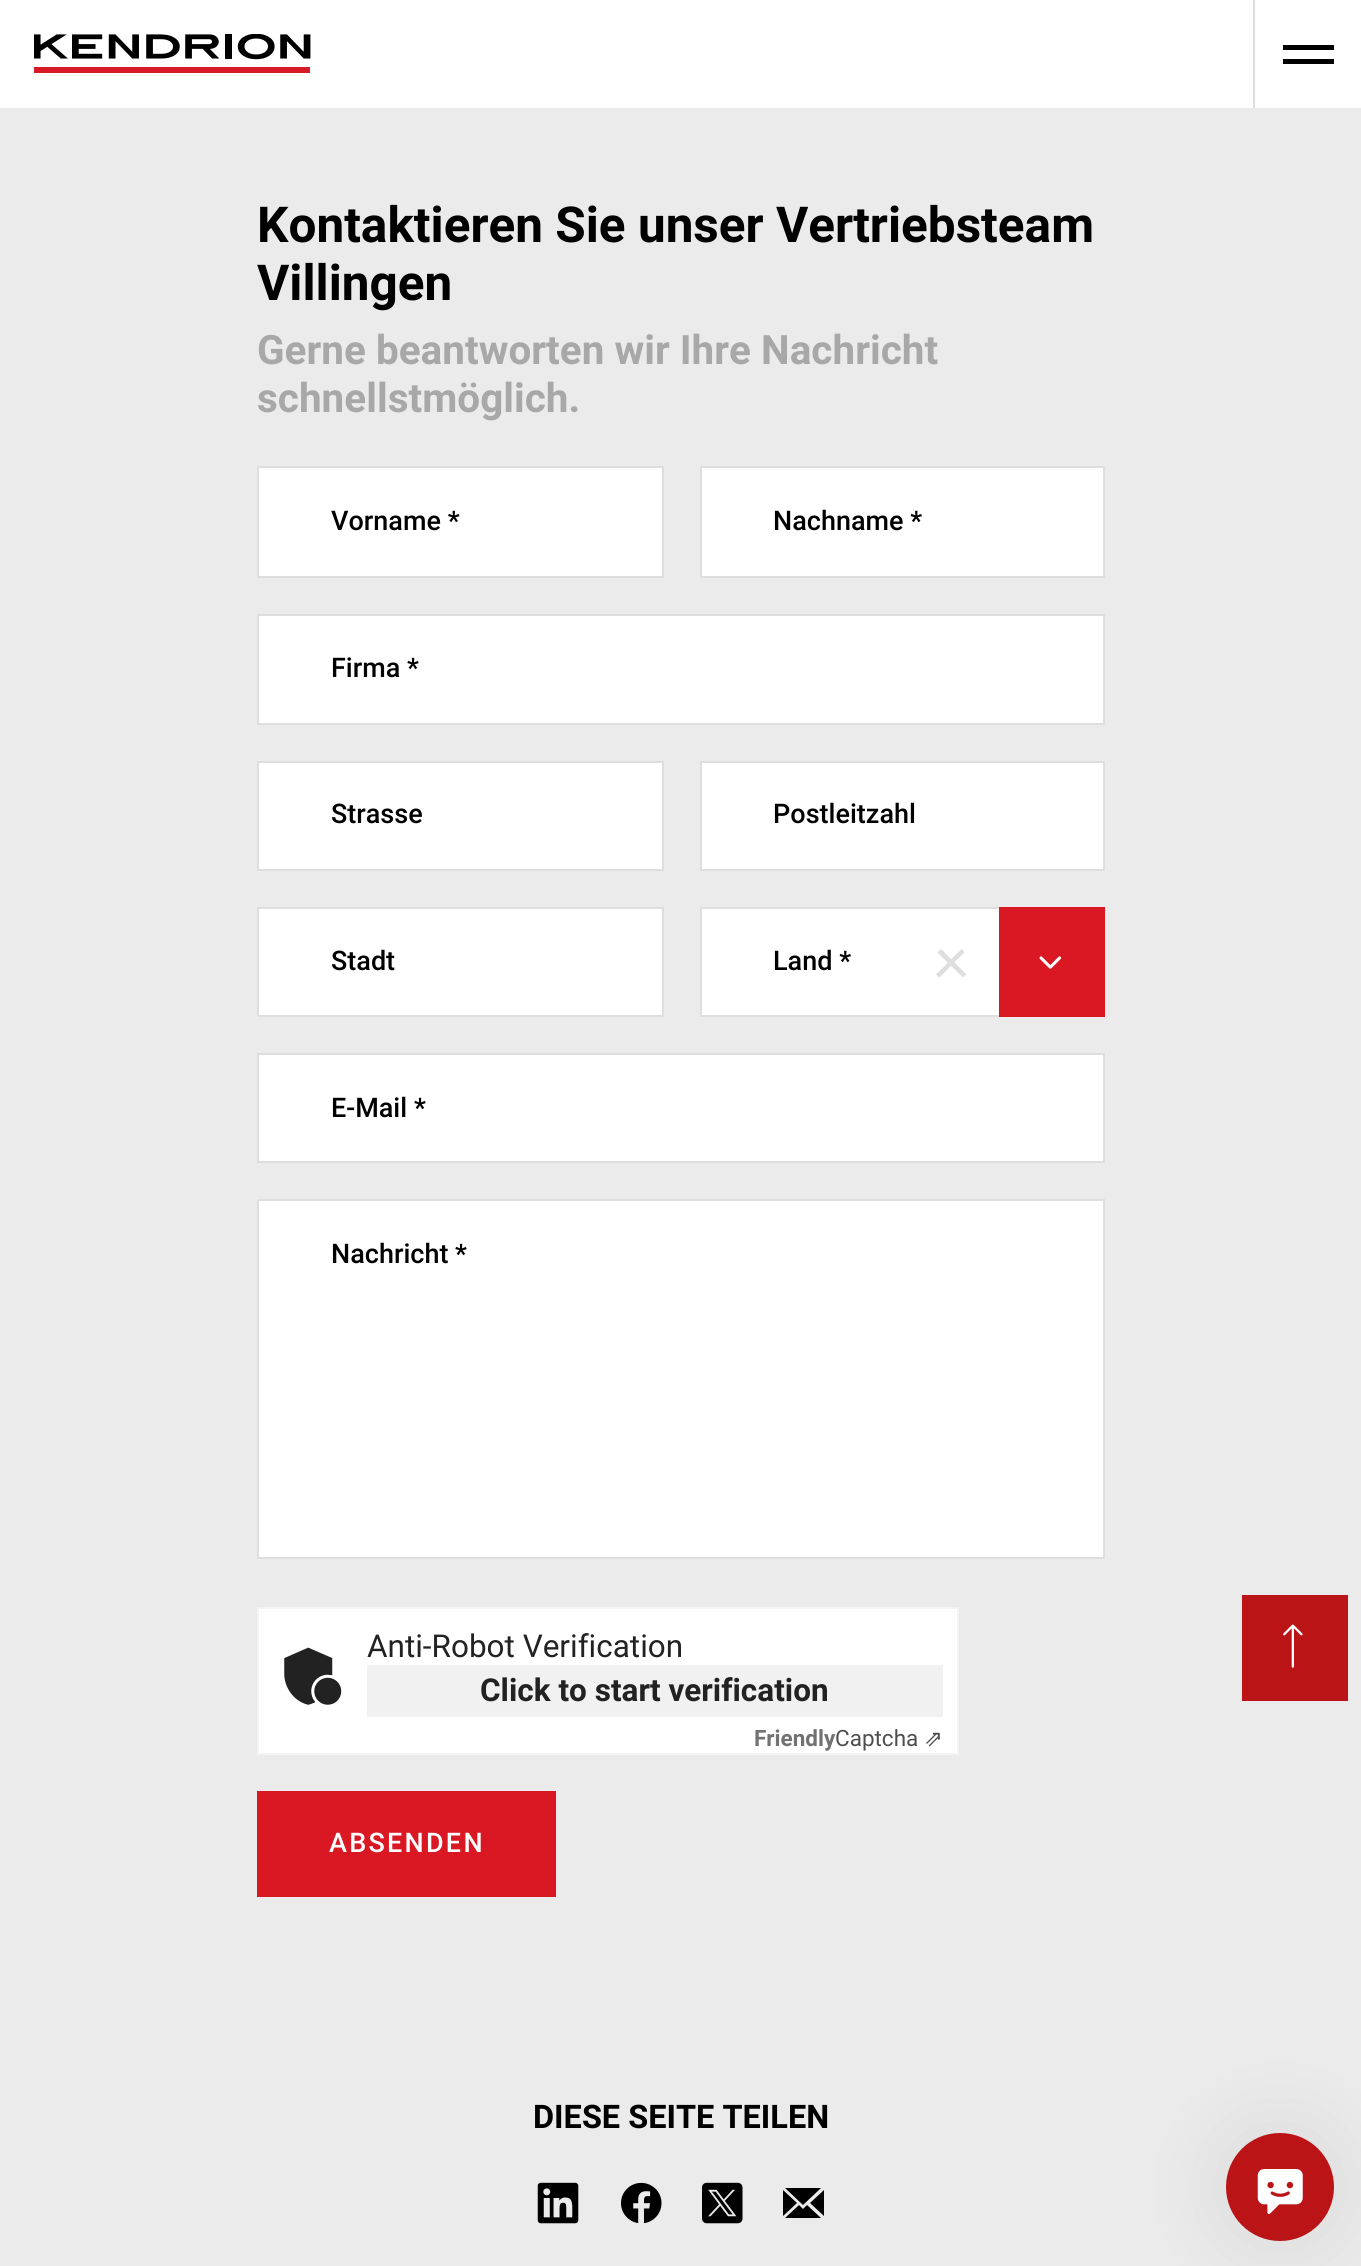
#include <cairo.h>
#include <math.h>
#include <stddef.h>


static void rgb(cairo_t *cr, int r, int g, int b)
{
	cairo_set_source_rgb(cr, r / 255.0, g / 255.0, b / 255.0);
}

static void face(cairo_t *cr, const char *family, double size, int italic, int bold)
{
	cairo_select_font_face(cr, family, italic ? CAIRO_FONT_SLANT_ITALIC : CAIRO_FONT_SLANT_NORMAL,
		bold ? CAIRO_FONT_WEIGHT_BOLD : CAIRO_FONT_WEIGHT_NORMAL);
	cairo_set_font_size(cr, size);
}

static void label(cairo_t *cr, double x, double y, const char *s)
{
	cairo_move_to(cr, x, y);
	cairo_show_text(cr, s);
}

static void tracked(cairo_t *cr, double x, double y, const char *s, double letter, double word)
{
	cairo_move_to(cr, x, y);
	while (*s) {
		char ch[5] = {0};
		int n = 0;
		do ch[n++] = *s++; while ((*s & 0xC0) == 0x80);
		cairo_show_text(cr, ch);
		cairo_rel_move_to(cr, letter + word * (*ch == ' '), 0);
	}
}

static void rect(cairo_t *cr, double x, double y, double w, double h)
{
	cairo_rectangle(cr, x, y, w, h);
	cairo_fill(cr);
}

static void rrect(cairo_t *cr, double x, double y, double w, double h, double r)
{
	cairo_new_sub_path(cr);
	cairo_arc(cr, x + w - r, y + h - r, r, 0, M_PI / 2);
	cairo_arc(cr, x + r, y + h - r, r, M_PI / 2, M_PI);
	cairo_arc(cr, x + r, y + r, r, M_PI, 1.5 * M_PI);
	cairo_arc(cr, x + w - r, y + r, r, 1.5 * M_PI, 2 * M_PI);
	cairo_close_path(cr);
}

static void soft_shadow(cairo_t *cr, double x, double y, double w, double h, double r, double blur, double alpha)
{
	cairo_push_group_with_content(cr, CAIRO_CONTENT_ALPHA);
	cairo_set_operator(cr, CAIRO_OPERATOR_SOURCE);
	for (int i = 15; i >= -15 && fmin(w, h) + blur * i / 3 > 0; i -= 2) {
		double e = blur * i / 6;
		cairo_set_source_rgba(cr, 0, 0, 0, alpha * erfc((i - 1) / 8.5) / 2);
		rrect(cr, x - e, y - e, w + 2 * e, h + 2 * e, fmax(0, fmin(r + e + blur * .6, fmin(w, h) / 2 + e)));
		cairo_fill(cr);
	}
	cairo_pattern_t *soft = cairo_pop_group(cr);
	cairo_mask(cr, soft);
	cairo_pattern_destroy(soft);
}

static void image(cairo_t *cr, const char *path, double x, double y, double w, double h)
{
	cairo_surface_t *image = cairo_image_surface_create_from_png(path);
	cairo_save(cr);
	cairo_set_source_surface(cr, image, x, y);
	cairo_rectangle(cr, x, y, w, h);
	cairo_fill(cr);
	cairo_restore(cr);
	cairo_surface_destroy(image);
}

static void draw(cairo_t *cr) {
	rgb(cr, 235, 235, 235);
	cairo_paint(cr);
	rgb(cr, 255, 255, 255);
	rect(cr, 0, 0, 1361, 108);
	image(cr, "image0.png", 34, 34, 277, 39);
	rgb(cr, 222, 222, 222);
	rect(cr, 1253, 0, 2, 108);
	rgb(cr, 0, 0, 0);
	rect(cr, 1283, 45, 51, 5);
	rect(cr, 1283, 59, 51, 5);
	face(cr, "Roboto", 49.5, 0, 1);
	label(cr, 257, 242, "Kontaktieren Sie unser Vertriebsteam");
	label(cr, 257, 300, "Villingen");
	face(cr, "Roboto", 40.5, 0, 1);
	rgb(cr, 167, 168, 167);
	label(cr, 257, 364, "Gerne beantworten wir Ihre Nachricht");
	label(cr, 257, 412, "schnellstmöglich.");
	rgb(cr, 255, 255, 255);
	cairo_rectangle(cr, 258, 467, 405, 110);
	cairo_fill_preserve(cr);
	rgb(cr, 222, 222, 222);
	cairo_stroke(cr);
	face(cr, "Roboto Medium", 27, 0, 0);
	rgb(cr, 0, 0, 0);
	label(cr, 331, 530, "Vorname *");
	rgb(cr, 255, 255, 255);
	cairo_rectangle(cr, 701, 467, 403, 110);
	cairo_fill_preserve(cr);
	rgb(cr, 222, 222, 222);
	cairo_stroke(cr);
	rgb(cr, 0, 0, 0);
	label(cr, 773, 530, "Nachname *");
	rgb(cr, 255, 255, 255);
	cairo_rectangle(cr, 258, 615, 846, 109);
	cairo_fill_preserve(cr);
	rgb(cr, 222, 222, 222);
	cairo_stroke(cr);
	rgb(cr, 0, 0, 0);
	label(cr, 331, 677, "Firma *");
	rgb(cr, 255, 255, 255);
	cairo_rectangle(cr, 258, 762, 405, 108);
	cairo_fill_preserve(cr);
	rgb(cr, 222, 222, 222);
	cairo_stroke(cr);
	rgb(cr, 0, 0, 0);
	label(cr, 331, 823, "Strasse");
	rgb(cr, 255, 255, 255);
	cairo_rectangle(cr, 701, 762, 403, 108);
	cairo_fill_preserve(cr);
	rgb(cr, 222, 222, 222);
	cairo_stroke(cr);
	rgb(cr, 0, 0, 0);
	label(cr, 773, 823, "Postleitzahl");
	rgb(cr, 255, 255, 255);
	cairo_rectangle(cr, 258, 908, 405, 108);
	cairo_fill_preserve(cr);
	rgb(cr, 222, 222, 222);
	cairo_stroke(cr);
	rgb(cr, 0, 0, 0);
	label(cr, 331, 970, "Stadt");
	rgb(cr, 255, 255, 255);
	rect(cr, 702, 909, 297, 106);
	cairo_rectangle(cr, 701, 908, 403, 108);
	rgb(cr, 222, 222, 222);
	cairo_stroke(cr);
	rgb(cr, 0, 0, 0);
	label(cr, 773, 970, "Land *");
	rgb(cr, 222, 222, 222);
	cairo_new_path(cr);
	cairo_move_to(cr, 941, 949);
	cairo_line_to(cr, 966.5, 974.5);
	cairo_line_to(cr, 963, 977.5);
	cairo_line_to(cr, 937.5, 952.5);
	cairo_close_path(cr);
	cairo_fill(cr);
	cairo_new_path(cr);
	cairo_move_to(cr, 936, 974.5);
	cairo_line_to(cr, 961.5, 949);
	cairo_line_to(cr, 964.5, 952);
	cairo_line_to(cr, 939.5, 977.5);
	cairo_close_path(cr);
	cairo_fill(cr);
	rgb(cr, 217, 24, 36);
	rect(cr, 999, 907, 106, 110);
	image(cr, "image1.png", 1039, 956, 23, 13);
	rgb(cr, 255, 255, 255);
	cairo_rectangle(cr, 258, 1054, 846, 108);
	cairo_fill_preserve(cr);
	rgb(cr, 222, 222, 222);
	cairo_stroke(cr);
	rgb(cr, 0, 0, 0);
	label(cr, 331, 1117, "E-Mail *");
	rgb(cr, 255, 255, 255);
	cairo_rectangle(cr, 258, 1200, 846, 358);
	cairo_fill_preserve(cr);
	rgb(cr, 222, 222, 222);
	cairo_stroke(cr);
	rgb(cr, 0, 0, 0);
	label(cr, 331, 1263, "Nachricht *");
	rgb(cr, 255, 255, 255);
	cairo_rectangle(cr, 258, 1608, 700, 146);
	cairo_fill_preserve(cr);
	rgb(cr, 244, 244, 244);
	cairo_stroke(cr);
	image(cr, "image2.png", 284, 1647, 58, 58);
	face(cr, "Roboto", 31.5, 0, 0);
	rgb(cr, 34, 34, 34);
	label(cr, 367, 1657, "Anti-Robot Verification");
	rgb(cr, 241, 241, 241);
	rect(cr, 367, 1665, 576, 52);
	face(cr, "Roboto", 31.5, 0, 1);
	rgb(cr, 34, 34, 34);
	label(cr, 480, 1701, "Click to start verification");
	face(cr, "Roboto", 22.5, 0, 1);
	rgb(cr, 114, 114, 114);
	label(cr, 754, 1746, "Friendly");
	face(cr, "Roboto", 22.5, 0, 0);
	rgb(cr, 78, 78, 78);
	label(cr, 835, 1746, "Captcha");
	face(cr, "DejaVu Sans", 22.5, 0, 0);
	label(cr, 924, 1746, "⇗");
	rgb(cr, 217, 24, 36);
	rect(cr, 257, 1791, 299, 106);
	face(cr, "Roboto Medium", 27, 0, 0);
	rgb(cr, 255, 255, 255);
	tracked(cr, 329, 1852, "ABSENDEN", 2.25, 0);
	face(cr, "Roboto", 32.5, 0, 1);
	rgb(cr, 0, 0, 0);
	label(cr, 533, 2128, "DIESE SEITE TEILEN");
	image(cr, "image3.png", 537, 2182, 42, 42);
	image(cr, "image4.png", 621, 2182, 41, 42);
	image(cr, "image5.png", 702, 2182, 41, 42);
	cairo_new_path(cr);
	cairo_move_to(cr, 824, 2216);
	cairo_line_to(cr, 824, 2190);
	cairo_line_to(cr, 810, 2203);
	cairo_close_path(cr);
	cairo_move_to(cr, 803, 2209);
	cairo_line_to(cr, 799, 2205);
	cairo_line_to(cr, 785, 2218);
	cairo_line_to(cr, 821, 2218);
	cairo_line_to(cr, 807, 2205);
	cairo_close_path(cr);
	cairo_move_to(cr, 821, 2188);
	cairo_line_to(cr, 785, 2188);
	cairo_line_to(cr, 803, 2205);
	cairo_close_path(cr);
	cairo_move_to(cr, 783, 2190);
	cairo_line_to(cr, 783, 2216);
	cairo_line_to(cr, 797, 2203);
	cairo_close_path(cr);
	cairo_fill(cr);
	rgb(cr, 186, 20, 23);
	rect(cr, 1242, 1595, 106, 106);
	image(cr, "image6.png", 1283, 1624, 20, 44);
	rgb(cr, 0, 0, 0);
	soft_shadow(cr, 1208, 2115, 144, 144, 72, 36, 0.06);
	rgb(cr, 186, 20, 23);
	cairo_arc(cr, 1280, 2187, 54, 0, 2 * M_PI);
	cairo_fill(cr);
	image(cr, "image7.png", 1257, 2169, 46, 45);
}

int main(void) {
	cairo_surface_t *surface = cairo_image_surface_create(CAIRO_FORMAT_RGB24, 1361, 2266);
	cairo_t *cr = cairo_create(surface);
	cairo_font_options_t *options = cairo_font_options_create();
	cairo_font_options_set_hint_metrics(options, CAIRO_HINT_METRICS_OFF);
	cairo_font_options_set_hint_style(options, CAIRO_HINT_STYLE_NONE);
	cairo_set_font_options(cr, options);
	cairo_set_miter_limit(cr, 4);
	draw(cr);
	cairo_surface_write_to_png(surface, "render.png");
	cairo_font_options_destroy(options);
	cairo_destroy(cr);
	cairo_surface_destroy(surface);
	return 0;
}
